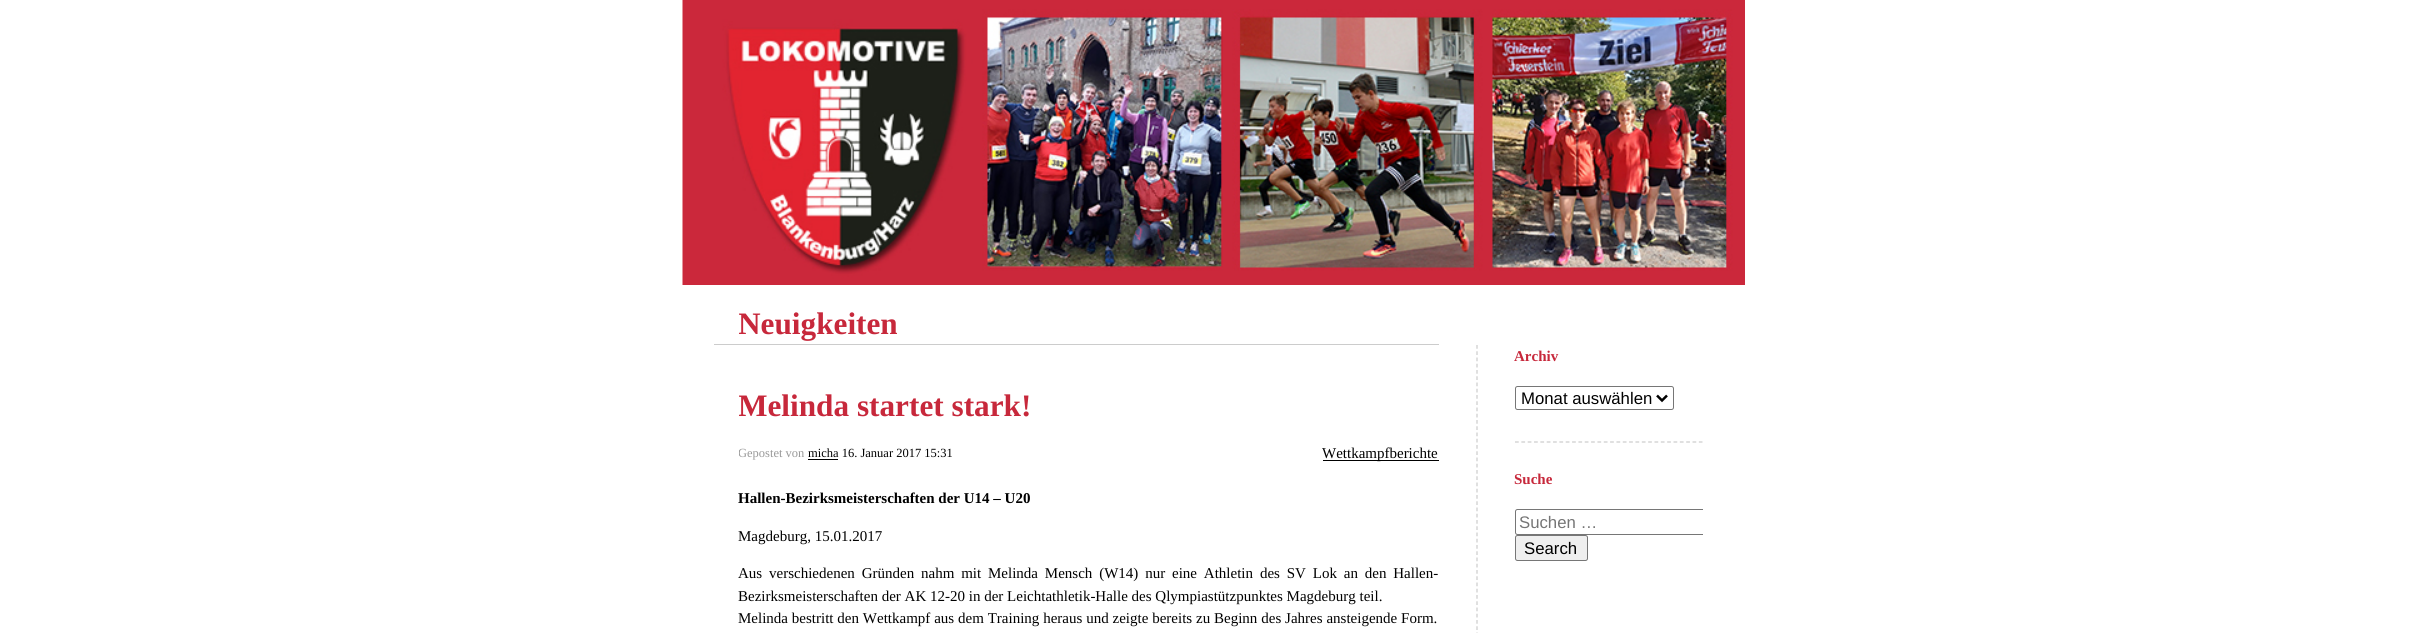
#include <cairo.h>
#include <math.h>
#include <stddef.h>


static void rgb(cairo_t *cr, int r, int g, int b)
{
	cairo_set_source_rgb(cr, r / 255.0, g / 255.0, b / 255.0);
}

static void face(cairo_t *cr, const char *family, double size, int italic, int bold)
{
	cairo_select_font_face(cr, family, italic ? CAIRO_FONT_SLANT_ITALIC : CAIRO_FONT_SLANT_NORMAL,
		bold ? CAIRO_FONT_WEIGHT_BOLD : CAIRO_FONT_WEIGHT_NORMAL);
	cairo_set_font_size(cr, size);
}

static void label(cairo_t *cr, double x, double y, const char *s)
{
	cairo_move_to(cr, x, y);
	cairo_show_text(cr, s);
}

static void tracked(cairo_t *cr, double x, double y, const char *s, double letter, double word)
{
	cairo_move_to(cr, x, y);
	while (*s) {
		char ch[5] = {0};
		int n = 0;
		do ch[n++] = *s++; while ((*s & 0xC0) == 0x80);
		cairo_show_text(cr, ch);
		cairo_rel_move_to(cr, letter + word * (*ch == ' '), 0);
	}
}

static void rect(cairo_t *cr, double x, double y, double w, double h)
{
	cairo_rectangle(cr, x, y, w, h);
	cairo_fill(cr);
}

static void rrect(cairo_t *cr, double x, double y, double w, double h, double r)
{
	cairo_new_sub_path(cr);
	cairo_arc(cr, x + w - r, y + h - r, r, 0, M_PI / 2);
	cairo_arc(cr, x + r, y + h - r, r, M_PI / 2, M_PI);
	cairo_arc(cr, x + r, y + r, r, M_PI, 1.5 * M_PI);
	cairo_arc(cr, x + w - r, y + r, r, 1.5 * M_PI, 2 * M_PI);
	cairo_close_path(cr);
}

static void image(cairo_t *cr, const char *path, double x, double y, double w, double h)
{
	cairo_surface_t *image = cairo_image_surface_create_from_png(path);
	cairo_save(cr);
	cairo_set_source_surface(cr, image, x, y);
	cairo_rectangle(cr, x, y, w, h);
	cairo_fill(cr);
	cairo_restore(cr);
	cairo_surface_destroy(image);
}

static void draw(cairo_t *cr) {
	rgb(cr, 255, 255, 255);
	cairo_paint(cr);
	image(cr, "image0.png", 682, 0, 1063, 285);
	rgb(cr, 204, 204, 204);
	rect(cr, 714, 344, 725, 1);
	cairo_save(cr);
	cairo_rectangle(cr, 739, 298, 700, 46);
	cairo_clip(cr);
	face(cr, "Liberation Serif", 31.25, 0, 1);
	rgb(cr, 199, 40, 59);
	label(cr, 738, 334, "Neuigkeiten");
	cairo_restore(cr);
	cairo_save(cr);
	cairo_rectangle(cr, 739, 370, 700, 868);
	cairo_clip(cr);
	face(cr, "Liberation Serif", 31.25, 0, 1);
	rgb(cr, 199, 40, 59);
	label(cr, 738, 416, "Melinda startet stark!");
	face(cr, "Liberation Serif", 12.5, 0, 0);
	rgb(cr, 153, 153, 153);
	label(cr, 738, 457, "Gepostet von");
	cairo_restore(cr);
	face(cr, "Liberation Serif", 12.5, 0, 0);
	rgb(cr, 0, 0, 0);
	label(cr, 808, 457, "micha 16. Januar 2017 15:31");
	rect(cr, 808, 459, 30, 1);
	rect(cr, 1323, 460, 116, 1);
	face(cr, "Liberation Serif", 15, 0, 0);
	label(cr, 1322, 458, "Wettkampfberichte");
	face(cr, "Liberation Serif", 15, 0, 1);
	label(cr, 738, 503, "Hallen-Bezirksmeisterschaften der U14 – U20");
	face(cr, "Liberation Serif", 15, 0, 0);
	label(cr, 738, 541, "Magdeburg, 15.01.2017");
	tracked(cr, 738, 578, "Aus verschiedenen Gründen nahm mit Melinda Mensch (W14) nur eine Athletin des SV Lok an den Hallen-", 0, 3.1);
	label(cr, 738, 601, "Bezirksmeisterschaften der AK 12-20 in der Leichtathletik-Halle des Qlympiastützpunktes Magdeburg teil.");
	tracked(cr, 738, 623, "Melinda bestritt den Wettkampf aus dem Training heraus und zeigte bereits zu Beginn des Jahres ansteigende Form.", 0, 0.1);
	cairo_new_path(cr);
	cairo_move_to(cr, 1477, 345);
	cairo_line_to(cr, 1477, 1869);
	rgb(cr, 204, 204, 204);
	cairo_set_line_width(cr, 1.2);
	cairo_set_dash(cr, (double[]){3.75, 2.5}, 2, 0);
	cairo_stroke(cr);
	cairo_new_path(cr);
	cairo_move_to(cr, 1515, 442);
	cairo_line_to(cr, 1702.5, 442);
	cairo_set_dash(cr, (double[]){3.75, 2.59}, 2, 0);
	cairo_stroke(cr);
	face(cr, "Liberation Serif", 15, 0, 1);
	rgb(cr, 199, 40, 59);
	label(cr, 1514, 361, "Archiv");
	rrect(cr, 1515.5, 386.5, 158, 23, 2);
	rgb(cr, 118, 118, 118);
	cairo_set_line_width(cr, 1);
	cairo_set_dash(cr, NULL, 0, 0);
	cairo_stroke(cr);
	cairo_new_path(cr);
	cairo_move_to(cr, 1657, 395.5);
	cairo_line_to(cr, 1662, 400.5);
	cairo_line_to(cr, 1667, 395.5);
	rgb(cr, 0, 0, 0);
	cairo_set_line_width(cr, 2.5);
	cairo_stroke(cr);
	face(cr, "Liberation Sans", 16.75, 0, 0);
	label(cr, 1521, 404, "Monat auswählen");
	face(cr, "Liberation Serif", 15, 0, 1);
	rgb(cr, 199, 40, 59);
	label(cr, 1514, 484, "Suche");
	cairo_save(cr);
	cairo_rectangle(cr, 1515, 509, 188, 84);
	cairo_clip(cr);
	rrect(cr, 1515.5, 509.5, 230, 25, 2);
	rgb(cr, 118, 118, 118);
	cairo_set_line_width(cr, 1);
	cairo_stroke(cr);
	cairo_restore(cr);
	face(cr, "Liberation Sans", 16.75, 0, 0);
	rgb(cr, 117, 117, 117);
	label(cr, 1519, 528, "Suchen …");
	rgb(cr, 239, 239, 239);
	rrect(cr, 1515.5, 535.5, 72, 25, 2);
	cairo_fill_preserve(cr);
	rgb(cr, 118, 118, 118);
	cairo_set_line_width(cr, 1);
	cairo_stroke(cr);
	rgb(cr, 0, 0, 0);
	label(cr, 1524, 554, "Search");
}

int main(void) {
	cairo_surface_t *surface = cairo_image_surface_create(CAIRO_FORMAT_RGB24, 2426, 633);
	cairo_t *cr = cairo_create(surface);
	cairo_font_options_t *options = cairo_font_options_create();
	cairo_font_options_set_hint_metrics(options, CAIRO_HINT_METRICS_OFF);
	cairo_font_options_set_hint_style(options, CAIRO_HINT_STYLE_NONE);
	cairo_set_font_options(cr, options);
	cairo_set_miter_limit(cr, 4);
	draw(cr);
	cairo_surface_write_to_png(surface, "render.png");
	cairo_font_options_destroy(options);
	cairo_destroy(cr);
	cairo_surface_destroy(surface);
	return 0;
}
